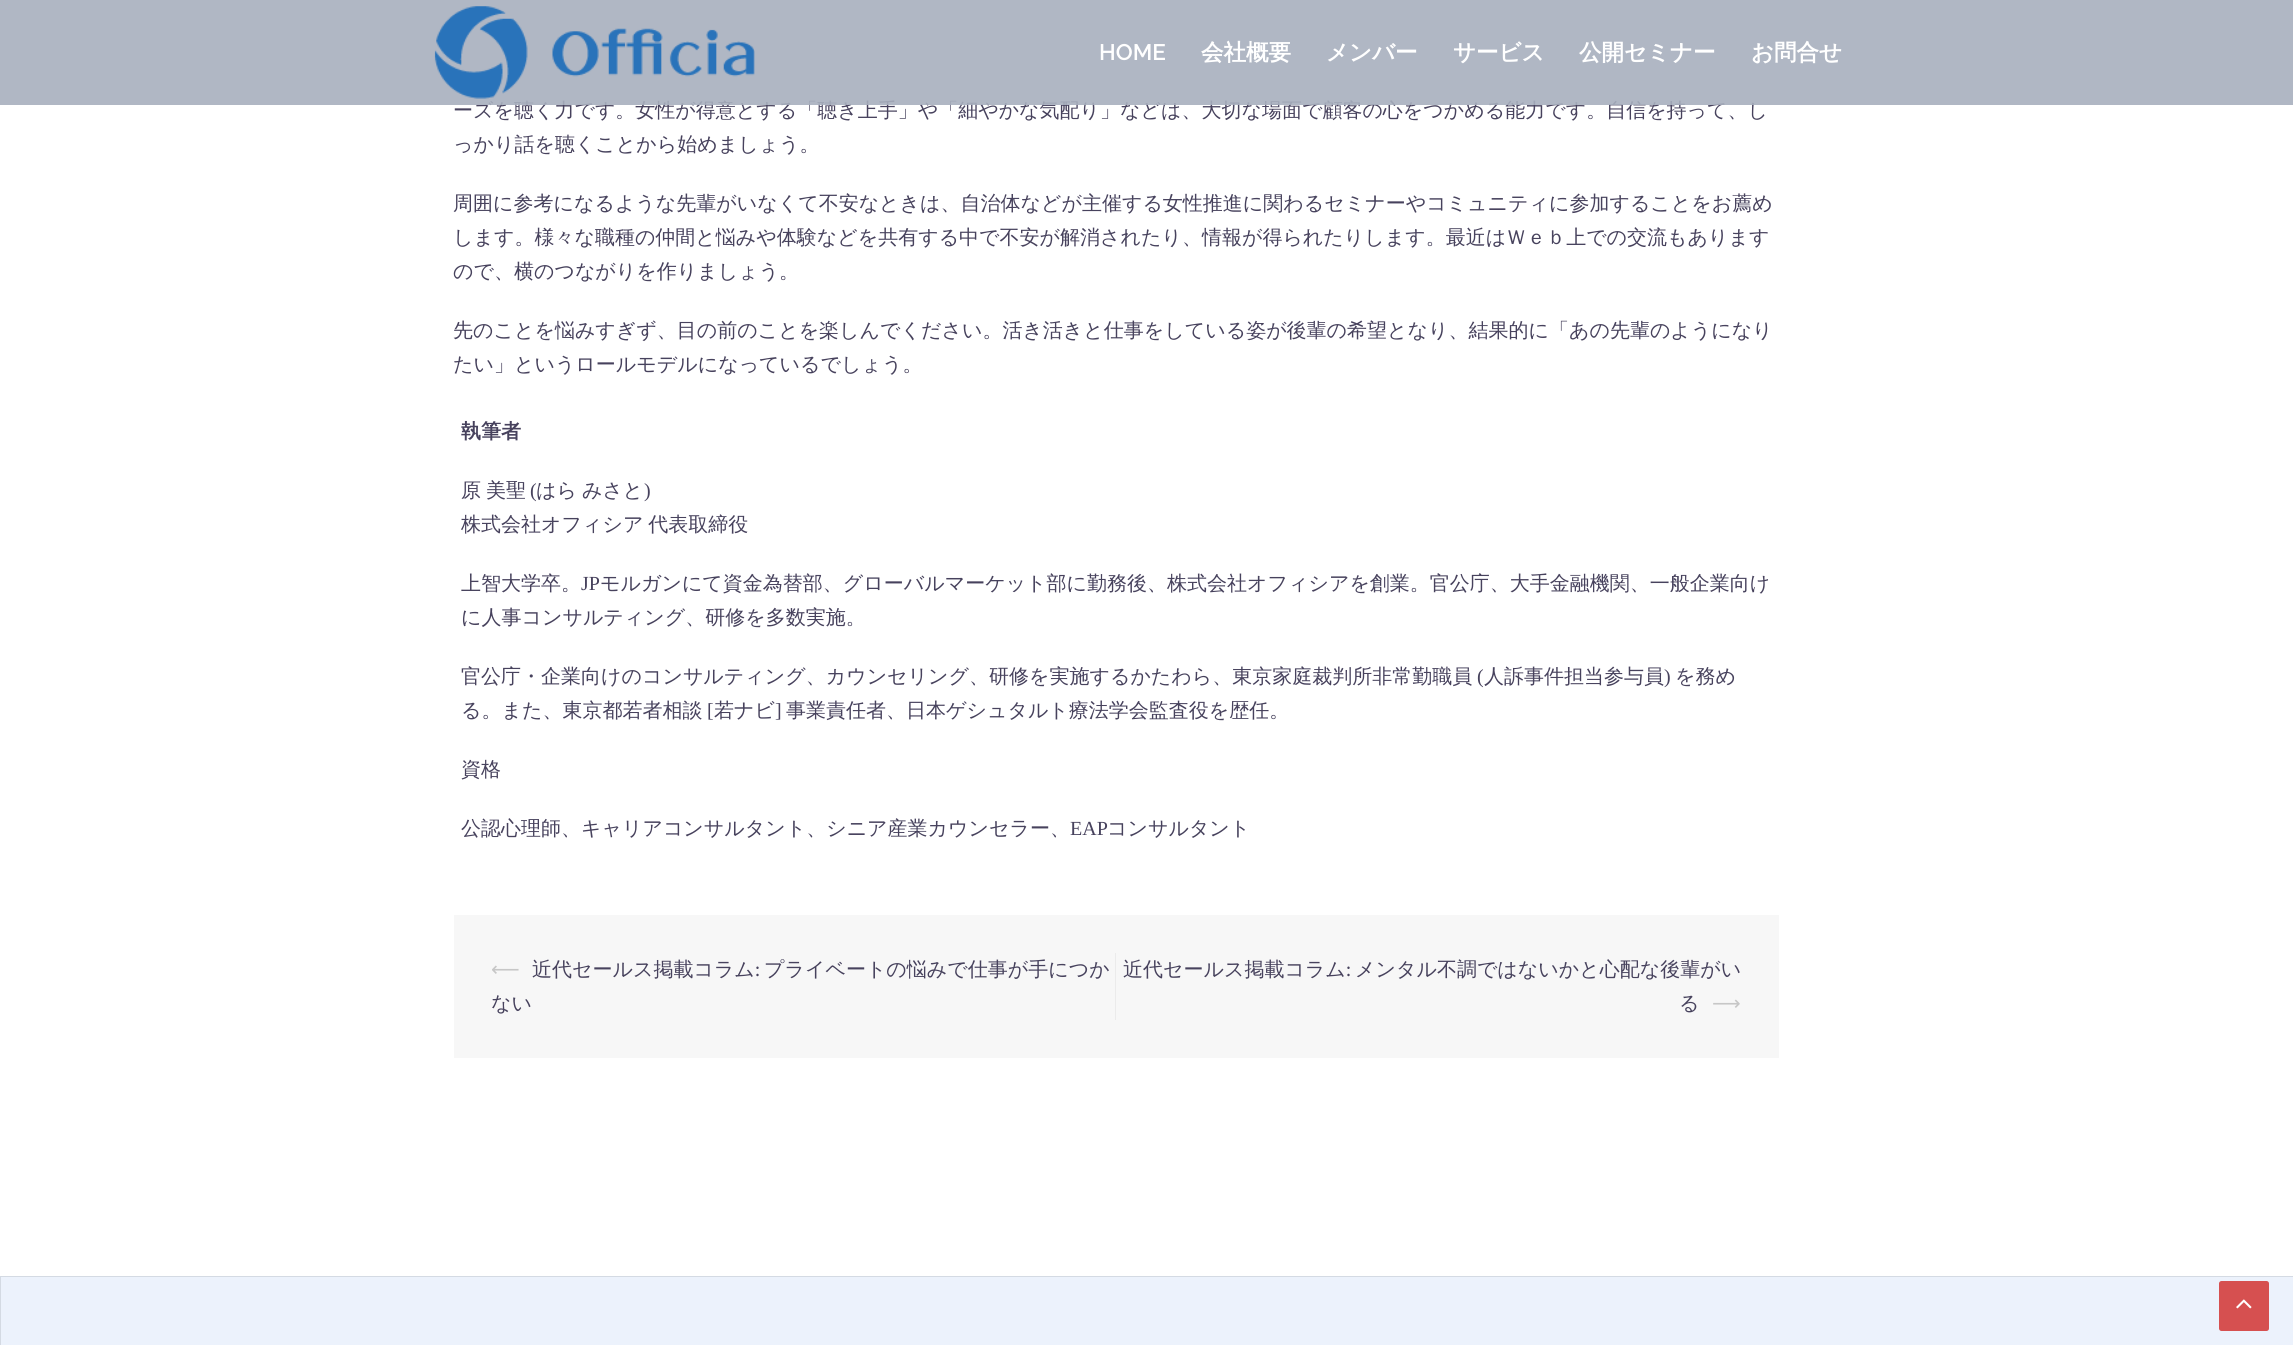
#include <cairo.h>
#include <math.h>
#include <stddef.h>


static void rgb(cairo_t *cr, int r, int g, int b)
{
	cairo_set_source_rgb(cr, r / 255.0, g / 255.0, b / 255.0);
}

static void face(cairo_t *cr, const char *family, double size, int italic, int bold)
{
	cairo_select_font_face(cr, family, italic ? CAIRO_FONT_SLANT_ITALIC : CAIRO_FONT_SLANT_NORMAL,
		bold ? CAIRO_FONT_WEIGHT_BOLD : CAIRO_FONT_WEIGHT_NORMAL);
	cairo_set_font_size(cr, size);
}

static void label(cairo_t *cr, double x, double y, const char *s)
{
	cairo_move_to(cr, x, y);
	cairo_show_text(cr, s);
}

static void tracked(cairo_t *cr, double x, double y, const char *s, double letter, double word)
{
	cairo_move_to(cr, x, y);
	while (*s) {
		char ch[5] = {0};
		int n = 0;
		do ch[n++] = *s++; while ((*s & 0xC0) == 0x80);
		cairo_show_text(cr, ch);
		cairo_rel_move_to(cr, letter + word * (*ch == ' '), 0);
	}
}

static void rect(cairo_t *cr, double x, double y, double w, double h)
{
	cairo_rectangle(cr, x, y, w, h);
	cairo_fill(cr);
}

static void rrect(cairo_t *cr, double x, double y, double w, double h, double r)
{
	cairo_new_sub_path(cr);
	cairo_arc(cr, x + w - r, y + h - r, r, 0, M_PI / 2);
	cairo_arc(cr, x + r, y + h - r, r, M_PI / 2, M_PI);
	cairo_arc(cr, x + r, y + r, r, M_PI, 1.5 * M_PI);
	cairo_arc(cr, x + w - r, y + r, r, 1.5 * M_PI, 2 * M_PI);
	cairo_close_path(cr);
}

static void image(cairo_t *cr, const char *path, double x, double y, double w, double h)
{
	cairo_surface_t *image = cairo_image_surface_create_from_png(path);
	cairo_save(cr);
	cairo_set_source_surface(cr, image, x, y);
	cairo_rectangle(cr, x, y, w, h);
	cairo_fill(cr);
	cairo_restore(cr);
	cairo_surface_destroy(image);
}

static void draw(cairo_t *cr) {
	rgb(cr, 255, 255, 255);
	cairo_paint(cr);
	face(cr, "WenQuanYi Zen Hei Medium", 20, 0, 0);
	rgb(cr, 71, 66, 93);
	label(cr, 453, 117, "ーズを聴く力です。女性が得意とする「聴き上手」や「細やかな気配り」などは、大切な場面で顧客の心をつかめる能力です。自信を持って、し");
	cairo_set_source_rgba(cr, 0.659, 0.69, 0.745, 0.9);
	rect(cr, 0, 0, 2293, 105);
	image(cr, "image0.png", 434, 6, 321, 93);
	face(cr, "Raleway SemiBold", 22.5, 0, 0);
	rgb(cr, 255, 255, 255);
	label(cr, 1099, 60, "HOME");
	face(cr, "WenQuanYi Zen Hei", 22.5, 0, 1);
	label(cr, 1201, 60, "会社概要");
	label(cr, 1326, 60, "メンバー");
	label(cr, 1453, 60, "サービス");
	label(cr, 1579, 60, "公開セミナー");
	label(cr, 1751, 60, "お問合せ");
	face(cr, "WenQuanYi Zen Hei Medium", 20, 0, 0);
	rgb(cr, 71, 66, 93);
	label(cr, 453, 151, "っかり話を聴くことから始めましょう。");
	label(cr, 453, 210, "周囲に参考になるような先輩がいなくて不安なときは、自治体などが主催する女性推進に関わるセミナーやコミュニティに参加することをお薦め");
	label(cr, 453, 244, "します。様々な職種の仲間と悩みや体験などを共有する中で不安が解消されたり、情報が得られたりします。最近はＷｅｂ上での交流もあります");
	label(cr, 453, 278, "ので、横のつながりを作りましょう。");
	label(cr, 453, 337, "先のことを悩みすぎず、目の前のことを楽しんでください。活き活きと仕事をしている姿が後輩の希望となり、結果的に「あの先輩のようになり");
	label(cr, 453, 371, "たい」というロールモデルになっているでしょう。");
	face(cr, "WenQuanYi Zen Hei", 20, 0, 1);
	label(cr, 461, 438, "執筆者");
	face(cr, "WenQuanYi Zen Hei Medium", 20, 0, 0);
	tracked(cr, 461, 497, "原 美聖", 0, -1);
	face(cr, "Liberation Serif", 20, 0, 0);
	label(cr, 530, 497, "(");
	face(cr, "WenQuanYi Zen Hei Medium", 20, 0, 0);
	tracked(cr, 536, 497, "はら みさと", 0, -1);
	face(cr, "Liberation Serif", 20, 0, 0);
	label(cr, 644, 497, ")");
	face(cr, "WenQuanYi Zen Hei Medium", 20, 0, 0);
	tracked(cr, 461, 531, "株式会社オフィシア 代表取締役", 0, -1);
	label(cr, 461, 590, "上智大学卒。");
	face(cr, "Liberation Serif", 20, 0, 0);
	label(cr, 581, 590, "JP");
	face(cr, "WenQuanYi Zen Hei Medium", 20, 0, 0);
	label(cr, 600, 590, "モルガンにて資金為替部、グローバルマーケット部に勤務後、株式会社オフィシアを創業。官公庁、大手金融機関、一般企業向け");
	label(cr, 461, 624, "に人事コンサルティング、研修を多数実施。");
	label(cr, 461, 683, "官公庁・企業向けのコンサルティング、カウンセリング、研修を実施するかたわら、東京家庭裁判所非常勤職員");
	face(cr, "Liberation Serif", 20, 0, 0);
	label(cr, 1477, 683, "(");
	face(cr, "WenQuanYi Zen Hei Medium", 20, 0, 0);
	label(cr, 1484, 683, "人訴事件担当参与員");
	face(cr, "Liberation Serif", 20, 0, 0);
	label(cr, 1664, 683, ")");
	face(cr, "WenQuanYi Zen Hei Medium", 20, 0, 0);
	label(cr, 1675, 683, "を務め");
	label(cr, 461, 717, "る。また、東京都若者相談");
	face(cr, "Liberation Serif", 20, 0, 0);
	label(cr, 707, 717, "[");
	face(cr, "WenQuanYi Zen Hei Medium", 20, 0, 0);
	label(cr, 714, 717, "若ナビ");
	face(cr, "Liberation Serif", 20, 0, 0);
	label(cr, 775, 717, "]");
	face(cr, "WenQuanYi Zen Hei Medium", 20, 0, 0);
	label(cr, 786, 717, "事業責任者、日本ゲシュタルト療法学会監査役を歴任。");
	label(cr, 461, 776, "資格");
	label(cr, 461, 835, "公認心理師、キャリアコンサルタント、シニア産業カウンセラー、");
	face(cr, "Liberation Serif", 20, 0, 0);
	label(cr, 1070, 835, "EAP");
	face(cr, "WenQuanYi Zen Hei Medium", 20, 0, 0);
	label(cr, 1107, 835, "コンサルタント");
	rgb(cr, 247, 247, 247);
	rect(cr, 454, 915, 1325, 143);
	rgb(cr, 235, 235, 235);
	rect(cr, 1115, 953, 1, 67);
	face(cr, "DejaVu Sans", 20, 0, 0);
	rgb(cr, 199, 199, 199);
	label(cr, 491, 976, "⟵");
	face(cr, "WenQuanYi Zen Hei Medium", 20, 0, 0);
	rgb(cr, 71, 66, 93);
	label(cr, 532, 976, "近代セールス掲載コラム");
	face(cr, "Source Sans Pro", 20, 0, 0);
	label(cr, 755, 976, ":");
	face(cr, "WenQuanYi Zen Hei Medium", 20, 0, 0);
	label(cr, 764, 976, "プライベートの悩みで仕事が手につか");
	label(cr, 491, 1010, "ない");
	label(cr, 1123, 976, "近代セールス掲載コラム");
	face(cr, "Source Sans Pro", 20, 0, 0);
	label(cr, 1346, 976, ":");
	face(cr, "WenQuanYi Zen Hei Medium", 20, 0, 0);
	label(cr, 1355, 976, "メンタル不調ではないかと心配な後輩がい");
	label(cr, 1679, 1010, "る");
	face(cr, "DejaVu Sans", 20, 0, 0);
	rgb(cr, 199, 199, 199);
	label(cr, 1712, 1010, "⟶");
	rgb(cr, 236, 242, 252);
	cairo_rectangle(cr, 0.5, 1276.5, 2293, 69);
	cairo_fill_preserve(cr);
	rgb(cr, 212, 218, 227);
	cairo_set_line_width(cr, 1);
	cairo_stroke(cr);
	rgb(cr, 214, 80, 80);
	rrect(cr, 2219, 1281, 50, 50, 2.5);
	cairo_fill(cr);
	image(cr, "image1.png", 2236, 1299, 16, 10);
}

int main(void) {
	cairo_surface_t *surface = cairo_image_surface_create(CAIRO_FORMAT_RGB24, 2293, 1345);
	cairo_t *cr = cairo_create(surface);
	cairo_font_options_t *options = cairo_font_options_create();
	cairo_font_options_set_hint_metrics(options, CAIRO_HINT_METRICS_OFF);
	cairo_font_options_set_hint_style(options, CAIRO_HINT_STYLE_NONE);
	cairo_set_font_options(cr, options);
	cairo_set_miter_limit(cr, 4);
	draw(cr);
	cairo_surface_write_to_png(surface, "render.png");
	cairo_font_options_destroy(options);
	cairo_destroy(cr);
	cairo_surface_destroy(surface);
	return 0;
}
